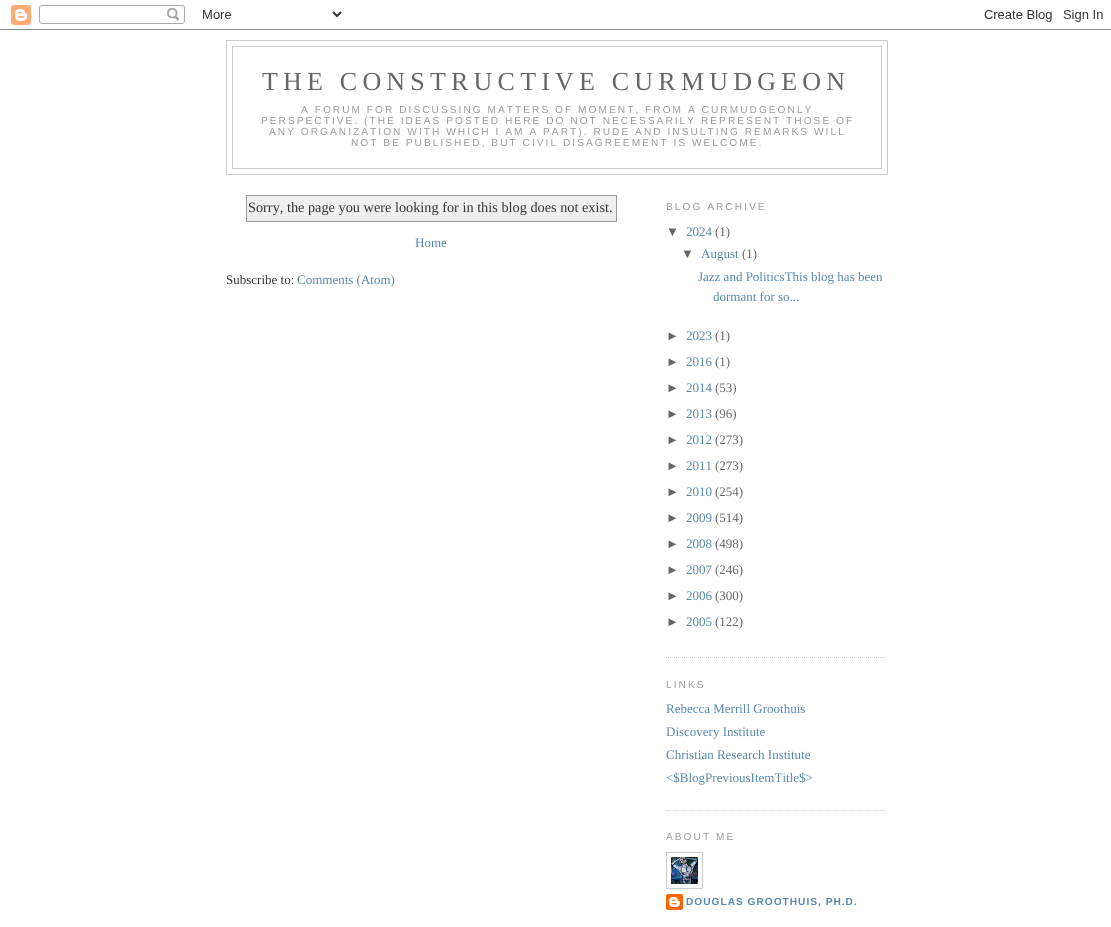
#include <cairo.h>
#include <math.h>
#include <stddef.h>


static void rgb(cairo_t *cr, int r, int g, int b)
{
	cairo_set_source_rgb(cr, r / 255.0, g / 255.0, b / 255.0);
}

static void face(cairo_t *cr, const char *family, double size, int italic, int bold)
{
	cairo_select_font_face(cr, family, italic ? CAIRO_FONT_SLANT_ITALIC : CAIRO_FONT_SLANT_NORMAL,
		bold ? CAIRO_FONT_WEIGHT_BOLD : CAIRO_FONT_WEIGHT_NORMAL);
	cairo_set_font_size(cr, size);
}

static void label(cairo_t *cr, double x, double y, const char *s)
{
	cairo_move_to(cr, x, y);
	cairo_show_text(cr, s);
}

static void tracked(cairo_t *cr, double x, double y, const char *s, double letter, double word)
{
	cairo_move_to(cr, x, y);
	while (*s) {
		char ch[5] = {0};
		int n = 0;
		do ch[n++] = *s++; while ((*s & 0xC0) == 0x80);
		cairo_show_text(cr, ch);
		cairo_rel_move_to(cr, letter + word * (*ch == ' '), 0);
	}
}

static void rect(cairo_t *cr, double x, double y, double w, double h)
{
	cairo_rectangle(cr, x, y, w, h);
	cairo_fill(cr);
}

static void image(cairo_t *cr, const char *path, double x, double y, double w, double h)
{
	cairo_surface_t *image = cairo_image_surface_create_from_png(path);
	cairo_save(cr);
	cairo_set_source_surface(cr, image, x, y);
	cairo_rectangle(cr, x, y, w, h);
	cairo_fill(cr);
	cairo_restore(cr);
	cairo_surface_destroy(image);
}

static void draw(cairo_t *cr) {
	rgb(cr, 255, 255, 255);
	cairo_paint(cr);
	image(cr, "image0.png", 0, 5, 1111, 25);
	cairo_rectangle(cr, 226.5, 40.5, 661, 134);
	rgb(cr, 204, 204, 204);
	cairo_set_line_width(cr, 1);
	cairo_stroke(cr);
	cairo_rectangle(cr, 232.5, 46.5, 649, 122);
	cairo_stroke(cr);
	face(cr, "Liberation Serif", 26, 0, 0);
	rgb(cr, 102, 102, 102);
	tracked(cr, 262, 90, "THE CONSTRUCTIVE CURMUDGEON", 5.2, 0);
	face(cr, "Liberation Sans", 10.15, 0, 0);
	rgb(cr, 153, 153, 153);
	tracked(cr, 301, 113, "A FORUM FOR DISCUSSING MATTERS OF MOMENT, FROM A CURMUDGEONLY", 2.03, 0);
	tracked(cr, 261, 124, "PERSPECTIVE. (THE IDEAS POSTED HERE DO NOT NECESSARILY REPRESENT THOSE OF", 2.03, 0);
	tracked(cr, 269, 135, "ANY ORGANIZATION WITH WHICH I AM A PART). RUDE AND INSULTING REMARKS WILL", 2.03, 0);
	tracked(cr, 351, 146, "NOT BE PUBLISHED, BUT CIVIL DISAGREEMENT IS WELCOME.", 2.03, 0);
	cairo_rectangle(cr, 246.5, 195.5, 370, 26);
	cairo_stroke(cr);
	rgb(cr, 239, 239, 239);
	rect(cr, 247, 196, 369, 25);
	face(cr, "Liberation Serif", 14.3, 0, 0);
	rgb(cr, 51, 51, 51);
	label(cr, 248, 212, "Sorry, the page you were looking for in this blog does not exist.");
	face(cr, "Liberation Serif", 13, 0, 0);
	rgb(cr, 85, 136, 170);
	label(cr, 415, 247, "Home");
	rgb(cr, 51, 51, 51);
	label(cr, 226, 284, "Subscribe to:");
	rgb(cr, 85, 136, 170);
	label(cr, 297, 284, "Comments (Atom)");
	cairo_new_path(cr);
	cairo_move_to(cr, 666, 657.5);
	cairo_line_to(cr, 886, 657.5);
	rgb(cr, 204, 204, 204);
	cairo_set_dash(cr, (double[]){1, 1}, 2, 0);
	cairo_stroke(cr);
	face(cr, "Liberation Sans", 10.15, 0, 0);
	rgb(cr, 153, 153, 153);
	tracked(cr, 666, 210, "BLOG ARCHIVE", 2.03, 0);
	face(cr, "Liberation Sans", 13, 0, 0);
	rgb(cr, 102, 102, 102);
	label(cr, 666, 236, "▼");
	face(cr, "Liberation Serif", 13, 0, 0);
	rgb(cr, 85, 136, 170);
	label(cr, 686, 236, "2024");
	rgb(cr, 102, 102, 102);
	label(cr, 715, 236, "(1)");
	face(cr, "Liberation Sans", 13, 0, 0);
	label(cr, 681, 258, "▼");
	face(cr, "Liberation Serif", 13, 0, 0);
	rgb(cr, 85, 136, 170);
	label(cr, 701, 258, "August");
	rgb(cr, 102, 102, 102);
	label(cr, 742, 258, "(1)");
	rgb(cr, 85, 136, 170);
	label(cr, 698, 281, "Jazz and PoliticsThis blog has been");
	label(cr, 713, 301, "dormant for so...");
	face(cr, "Liberation Sans", 13, 0, 0);
	rgb(cr, 102, 102, 102);
	label(cr, 666, 340, "►");
	face(cr, "Liberation Serif", 13, 0, 0);
	rgb(cr, 85, 136, 170);
	label(cr, 686, 340, "2023");
	rgb(cr, 102, 102, 102);
	label(cr, 715, 340, "(1)");
	face(cr, "Liberation Sans", 13, 0, 0);
	label(cr, 666, 366, "►");
	face(cr, "Liberation Serif", 13, 0, 0);
	rgb(cr, 85, 136, 170);
	label(cr, 686, 366, "2016");
	rgb(cr, 102, 102, 102);
	label(cr, 715, 366, "(1)");
	face(cr, "Liberation Sans", 13, 0, 0);
	label(cr, 666, 392, "►");
	face(cr, "Liberation Serif", 13, 0, 0);
	rgb(cr, 85, 136, 170);
	label(cr, 686, 392, "2014");
	rgb(cr, 102, 102, 102);
	label(cr, 715, 392, "(53)");
	face(cr, "Liberation Sans", 13, 0, 0);
	label(cr, 666, 418, "►");
	face(cr, "Liberation Serif", 13, 0, 0);
	rgb(cr, 85, 136, 170);
	label(cr, 686, 418, "2013");
	rgb(cr, 102, 102, 102);
	label(cr, 715, 418, "(96)");
	face(cr, "Liberation Sans", 13, 0, 0);
	label(cr, 666, 444, "►");
	face(cr, "Liberation Serif", 13, 0, 0);
	rgb(cr, 85, 136, 170);
	label(cr, 686, 444, "2012");
	rgb(cr, 102, 102, 102);
	label(cr, 715, 444, "(273)");
	face(cr, "Liberation Sans", 13, 0, 0);
	label(cr, 666, 470, "►");
	face(cr, "Liberation Serif", 13, 0, 0);
	rgb(cr, 85, 136, 170);
	label(cr, 686, 470, "2011");
	rgb(cr, 102, 102, 102);
	label(cr, 715, 470, "(273)");
	face(cr, "Liberation Sans", 13, 0, 0);
	label(cr, 666, 496, "►");
	face(cr, "Liberation Serif", 13, 0, 0);
	rgb(cr, 85, 136, 170);
	label(cr, 686, 496, "2010");
	rgb(cr, 102, 102, 102);
	label(cr, 715, 496, "(254)");
	face(cr, "Liberation Sans", 13, 0, 0);
	label(cr, 666, 522, "►");
	face(cr, "Liberation Serif", 13, 0, 0);
	rgb(cr, 85, 136, 170);
	label(cr, 686, 522, "2009");
	rgb(cr, 102, 102, 102);
	label(cr, 715, 522, "(514)");
	face(cr, "Liberation Sans", 13, 0, 0);
	label(cr, 666, 548, "►");
	face(cr, "Liberation Serif", 13, 0, 0);
	rgb(cr, 85, 136, 170);
	label(cr, 686, 548, "2008");
	rgb(cr, 102, 102, 102);
	label(cr, 715, 548, "(498)");
	face(cr, "Liberation Sans", 13, 0, 0);
	label(cr, 666, 574, "►");
	face(cr, "Liberation Serif", 13, 0, 0);
	rgb(cr, 85, 136, 170);
	label(cr, 686, 574, "2007");
	rgb(cr, 102, 102, 102);
	label(cr, 715, 574, "(246)");
	face(cr, "Liberation Sans", 13, 0, 0);
	label(cr, 666, 600, "►");
	face(cr, "Liberation Serif", 13, 0, 0);
	rgb(cr, 85, 136, 170);
	label(cr, 686, 600, "2006");
	rgb(cr, 102, 102, 102);
	label(cr, 715, 600, "(300)");
	face(cr, "Liberation Sans", 13, 0, 0);
	label(cr, 666, 626, "►");
	face(cr, "Liberation Serif", 13, 0, 0);
	rgb(cr, 85, 136, 170);
	label(cr, 686, 626, "2005");
	rgb(cr, 102, 102, 102);
	label(cr, 715, 626, "(122)");
	cairo_new_path(cr);
	cairo_move_to(cr, 666, 810.5);
	cairo_line_to(cr, 886, 810.5);
	rgb(cr, 204, 204, 204);
	cairo_stroke(cr);
	face(cr, "Liberation Sans", 10.15, 0, 0);
	rgb(cr, 153, 153, 153);
	tracked(cr, 666, 688, "LINKS", 2.03, 0);
	face(cr, "Liberation Serif", 13, 0, 0);
	rgb(cr, 85, 136, 170);
	label(cr, 666, 713, "Rebecca Merrill Groothuis");
	label(cr, 666, 736, "Discovery Institute");
	label(cr, 666, 759, "Christian Research Institute");
	label(cr, 666, 782, "<$BlogPreviousItemTitle$>");
	face(cr, "Liberation Sans", 10.15, 0, 0);
	rgb(cr, 153, 153, 153);
	tracked(cr, 666, 840, "ABOUT ME", 2.03, 0);
	cairo_rectangle(cr, 666.5, 852.5, 36, 36);
	rgb(cr, 204, 204, 204);
	cairo_set_dash(cr, NULL, 0, 0);
	cairo_stroke(cr);
	image(cr, "image1.png", 671, 857, 27, 27);
	image(cr, "image2.png", 666, 894, 17, 16);
	face(cr, "Liberation Sans", 10.15, 0, 1);
	rgb(cr, 85, 136, 170);
	tracked(cr, 686, 905, "DOUGLAS GROOTHUIS, PH.D.", 1, 0);
}

int main(void) {
	cairo_surface_t *surface = cairo_image_surface_create(CAIRO_FORMAT_RGB24, 1111, 927);
	cairo_t *cr = cairo_create(surface);
	cairo_font_options_t *options = cairo_font_options_create();
	cairo_font_options_set_hint_metrics(options, CAIRO_HINT_METRICS_OFF);
	cairo_font_options_set_hint_style(options, CAIRO_HINT_STYLE_NONE);
	cairo_set_font_options(cr, options);
	cairo_set_miter_limit(cr, 4);
	draw(cr);
	cairo_surface_write_to_png(surface, "render.png");
	cairo_font_options_destroy(options);
	cairo_destroy(cr);
	cairo_surface_destroy(surface);
	return 0;
}
